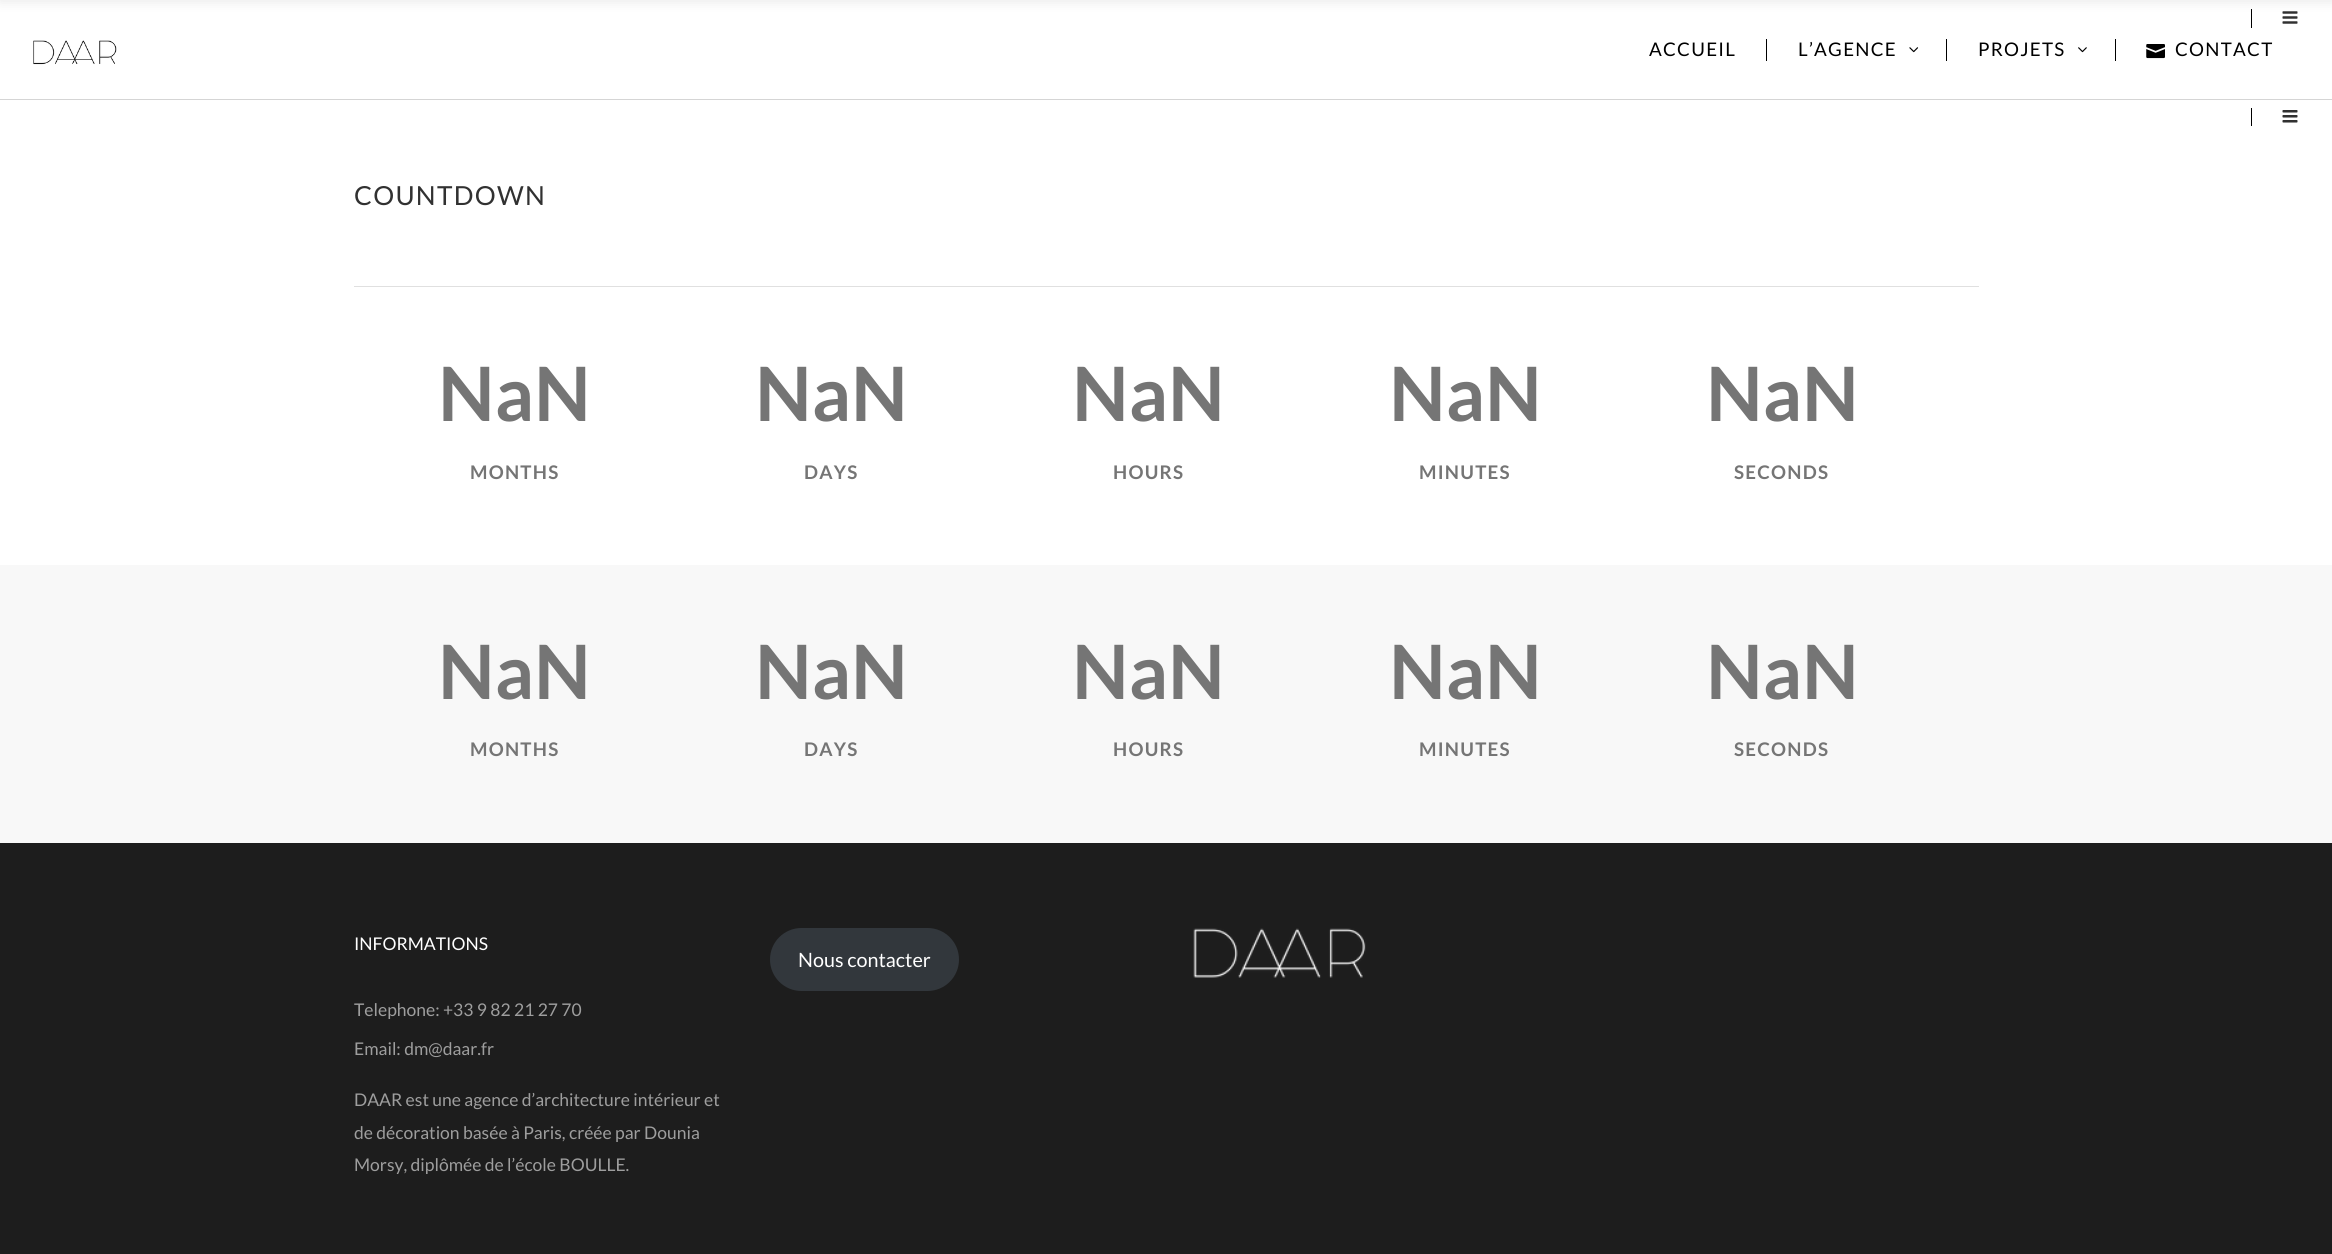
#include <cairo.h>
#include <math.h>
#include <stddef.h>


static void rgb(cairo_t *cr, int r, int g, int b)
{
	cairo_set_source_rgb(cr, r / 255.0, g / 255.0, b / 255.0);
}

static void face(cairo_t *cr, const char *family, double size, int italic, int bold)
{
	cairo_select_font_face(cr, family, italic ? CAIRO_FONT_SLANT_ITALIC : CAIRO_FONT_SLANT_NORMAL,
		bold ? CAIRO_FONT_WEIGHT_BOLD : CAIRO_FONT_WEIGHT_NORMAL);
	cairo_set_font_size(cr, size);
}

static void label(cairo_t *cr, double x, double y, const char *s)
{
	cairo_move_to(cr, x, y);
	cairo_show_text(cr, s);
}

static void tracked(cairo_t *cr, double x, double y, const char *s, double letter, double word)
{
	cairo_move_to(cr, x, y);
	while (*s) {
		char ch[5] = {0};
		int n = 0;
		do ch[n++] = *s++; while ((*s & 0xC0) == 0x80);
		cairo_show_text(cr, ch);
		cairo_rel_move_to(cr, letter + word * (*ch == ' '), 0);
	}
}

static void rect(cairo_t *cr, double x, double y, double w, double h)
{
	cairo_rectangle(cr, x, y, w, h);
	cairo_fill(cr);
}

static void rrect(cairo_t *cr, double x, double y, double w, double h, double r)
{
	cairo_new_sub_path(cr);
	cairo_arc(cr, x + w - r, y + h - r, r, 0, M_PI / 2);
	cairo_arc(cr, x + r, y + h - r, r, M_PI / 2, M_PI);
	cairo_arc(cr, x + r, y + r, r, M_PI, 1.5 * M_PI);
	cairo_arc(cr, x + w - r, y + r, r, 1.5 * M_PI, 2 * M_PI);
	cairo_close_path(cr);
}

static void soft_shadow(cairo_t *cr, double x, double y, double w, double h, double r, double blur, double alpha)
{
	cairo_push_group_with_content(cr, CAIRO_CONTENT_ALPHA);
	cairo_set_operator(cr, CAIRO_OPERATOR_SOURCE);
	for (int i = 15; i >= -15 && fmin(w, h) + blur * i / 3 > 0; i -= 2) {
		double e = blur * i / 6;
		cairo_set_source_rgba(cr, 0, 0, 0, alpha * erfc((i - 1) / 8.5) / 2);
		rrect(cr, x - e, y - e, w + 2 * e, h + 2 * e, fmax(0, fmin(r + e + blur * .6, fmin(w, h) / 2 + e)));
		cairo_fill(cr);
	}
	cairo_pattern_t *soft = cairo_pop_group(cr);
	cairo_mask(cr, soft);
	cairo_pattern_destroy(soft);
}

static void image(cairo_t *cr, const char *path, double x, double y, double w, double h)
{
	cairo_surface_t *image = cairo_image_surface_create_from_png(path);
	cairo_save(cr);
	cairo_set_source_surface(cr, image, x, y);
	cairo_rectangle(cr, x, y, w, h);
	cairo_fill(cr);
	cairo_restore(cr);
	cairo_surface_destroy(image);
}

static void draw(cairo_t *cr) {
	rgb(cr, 255, 255, 255);
	cairo_paint(cr);
	rgb(cr, 0, 0, 0);
	soft_shadow(cr, 0, -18, 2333, 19, 0, 6, 0.1);
	rgb(cr, 0, 0, 0);
	rect(cr, 2251, 9, 1, 19);
	image(cr, "image0.png", 2282, 11, 16, 13);
	rgb(cr, 213, 213, 213);
	rect(cr, 0, 99, 2332, 1);
	image(cr, "image1.png", 33, 40, 84, 25);
	face(cr, "Lato", 18.75, 0, 0);
	rgb(cr, 0, 0, 0);
	tracked(cr, 1649, 56, "ACCUEIL", 1.25, 0);
	rect(cr, 1766, 39, 1, 22);
	tracked(cr, 1798, 56, "L’AGENCE", 1.25, 0);
	image(cr, "image2.png", 1909, 47, 10, 6);
	rect(cr, 1946, 39, 1, 22);
	tracked(cr, 1978, 56, "PROJETS", 1.25, 0);
	image(cr, "image3.png", 2078, 47, 9, 6);
	rect(cr, 2115, 39, 1, 22);
	image(cr, "image4.png", 2146, 44, 19, 15);
	tracked(cr, 2175, 56, "CONTACT", 1.25, 0);
	rect(cr, 2251, 108, 1, 18);
	image(cr, "image5.png", 2282, 110, 16, 13);
	rgb(cr, 224, 224, 224);
	rect(cr, 354, 286, 1625, 1);
	face(cr, "Lato", 26.25, 0, 0);
	rgb(cr, 49, 49, 49);
	tracked(cr, 354, 205, "COUNTDOWN", 1.25, 0);
	face(cr, "Lato", 75, 0, 1);
	rgb(cr, 117, 117, 117);
	label(cr, 438, 421, "NaN");
	face(cr, "Lato", 18.75, 0, 1);
	tracked(cr, 470, 479, "MONTHS", 1.25, 0);
	face(cr, "Lato", 75, 0, 1);
	label(cr, 755, 421, "NaN");
	face(cr, "Lato", 18.75, 0, 1);
	tracked(cr, 804, 479, "DAYS", 1.25, 0);
	face(cr, "Lato", 75, 0, 1);
	label(cr, 1072, 421, "NaN");
	face(cr, "Lato", 18.75, 0, 1);
	tracked(cr, 1113, 479, "HOURS", 1.25, 0);
	face(cr, "Lato", 75, 0, 1);
	label(cr, 1389, 421, "NaN");
	face(cr, "Lato", 18.75, 0, 1);
	tracked(cr, 1419, 479, "MINUTES", 1.25, 0);
	face(cr, "Lato", 75, 0, 1);
	label(cr, 1706, 421, "NaN");
	face(cr, "Lato", 18.75, 0, 1);
	tracked(cr, 1734, 479, "SECONDS", 1.25, 0);
	rgb(cr, 248, 248, 248);
	rect(cr, 0, 565, 2332, 278);
	face(cr, "Lato", 75, 0, 1);
	rgb(cr, 117, 117, 117);
	label(cr, 438, 699, "NaN");
	face(cr, "Lato", 18.75, 0, 1);
	tracked(cr, 470, 756, "MONTHS", 1.25, 0);
	face(cr, "Lato", 75, 0, 1);
	label(cr, 755, 699, "NaN");
	face(cr, "Lato", 18.75, 0, 1);
	tracked(cr, 804, 756, "DAYS", 1.25, 0);
	face(cr, "Lato", 75, 0, 1);
	label(cr, 1072, 699, "NaN");
	face(cr, "Lato", 18.75, 0, 1);
	tracked(cr, 1113, 756, "HOURS", 1.25, 0);
	face(cr, "Lato", 75, 0, 1);
	label(cr, 1389, 699, "NaN");
	face(cr, "Lato", 18.75, 0, 1);
	tracked(cr, 1419, 756, "MINUTES", 1.25, 0);
	face(cr, "Lato", 75, 0, 1);
	label(cr, 1706, 699, "NaN");
	face(cr, "Lato", 18.75, 0, 1);
	tracked(cr, 1734, 756, "SECONDS", 1.25, 0);
	rgb(cr, 29, 29, 29);
	rect(cr, 0, 843, 2332, 411);
	face(cr, "Lato", 17.5, 0, 0);
	rgb(cr, 255, 255, 255);
	label(cr, 354, 950, "INFORMATIONS");
	rgb(cr, 158, 158, 158);
	label(cr, 354, 1016, "Telephone: +33 9 82 21 27 70");
	label(cr, 354, 1055, "Email: dm@daar.fr");
	label(cr, 354, 1106, "DAAR est une agence d’architecture intérieur et");
	label(cr, 354, 1139, "de décoration basée à Paris, créée par Dounia");
	label(cr, 354, 1171, "Morsy, diplômée de l’école BOULLE.");
	rgb(cr, 50, 55, 60);
	rrect(cr, 770, 928, 189, 63, 31.5);
	cairo_fill(cr);
	face(cr, "Lato", 19.75, 0, 0);
	rgb(cr, 255, 255, 255);
	label(cr, 798, 967, "Nous contacter");
	image(cr, "image6.png", 1193, 928, 173, 50);
}

int main(void) {
	cairo_surface_t *surface = cairo_image_surface_create(CAIRO_FORMAT_RGB24, 2332, 1254);
	cairo_t *cr = cairo_create(surface);
	cairo_font_options_t *options = cairo_font_options_create();
	cairo_font_options_set_hint_metrics(options, CAIRO_HINT_METRICS_OFF);
	cairo_font_options_set_hint_style(options, CAIRO_HINT_STYLE_NONE);
	cairo_set_font_options(cr, options);
	cairo_set_miter_limit(cr, 4);
	draw(cr);
	cairo_surface_write_to_png(surface, "render.png");
	cairo_font_options_destroy(options);
	cairo_destroy(cr);
	cairo_surface_destroy(surface);
	return 0;
}
